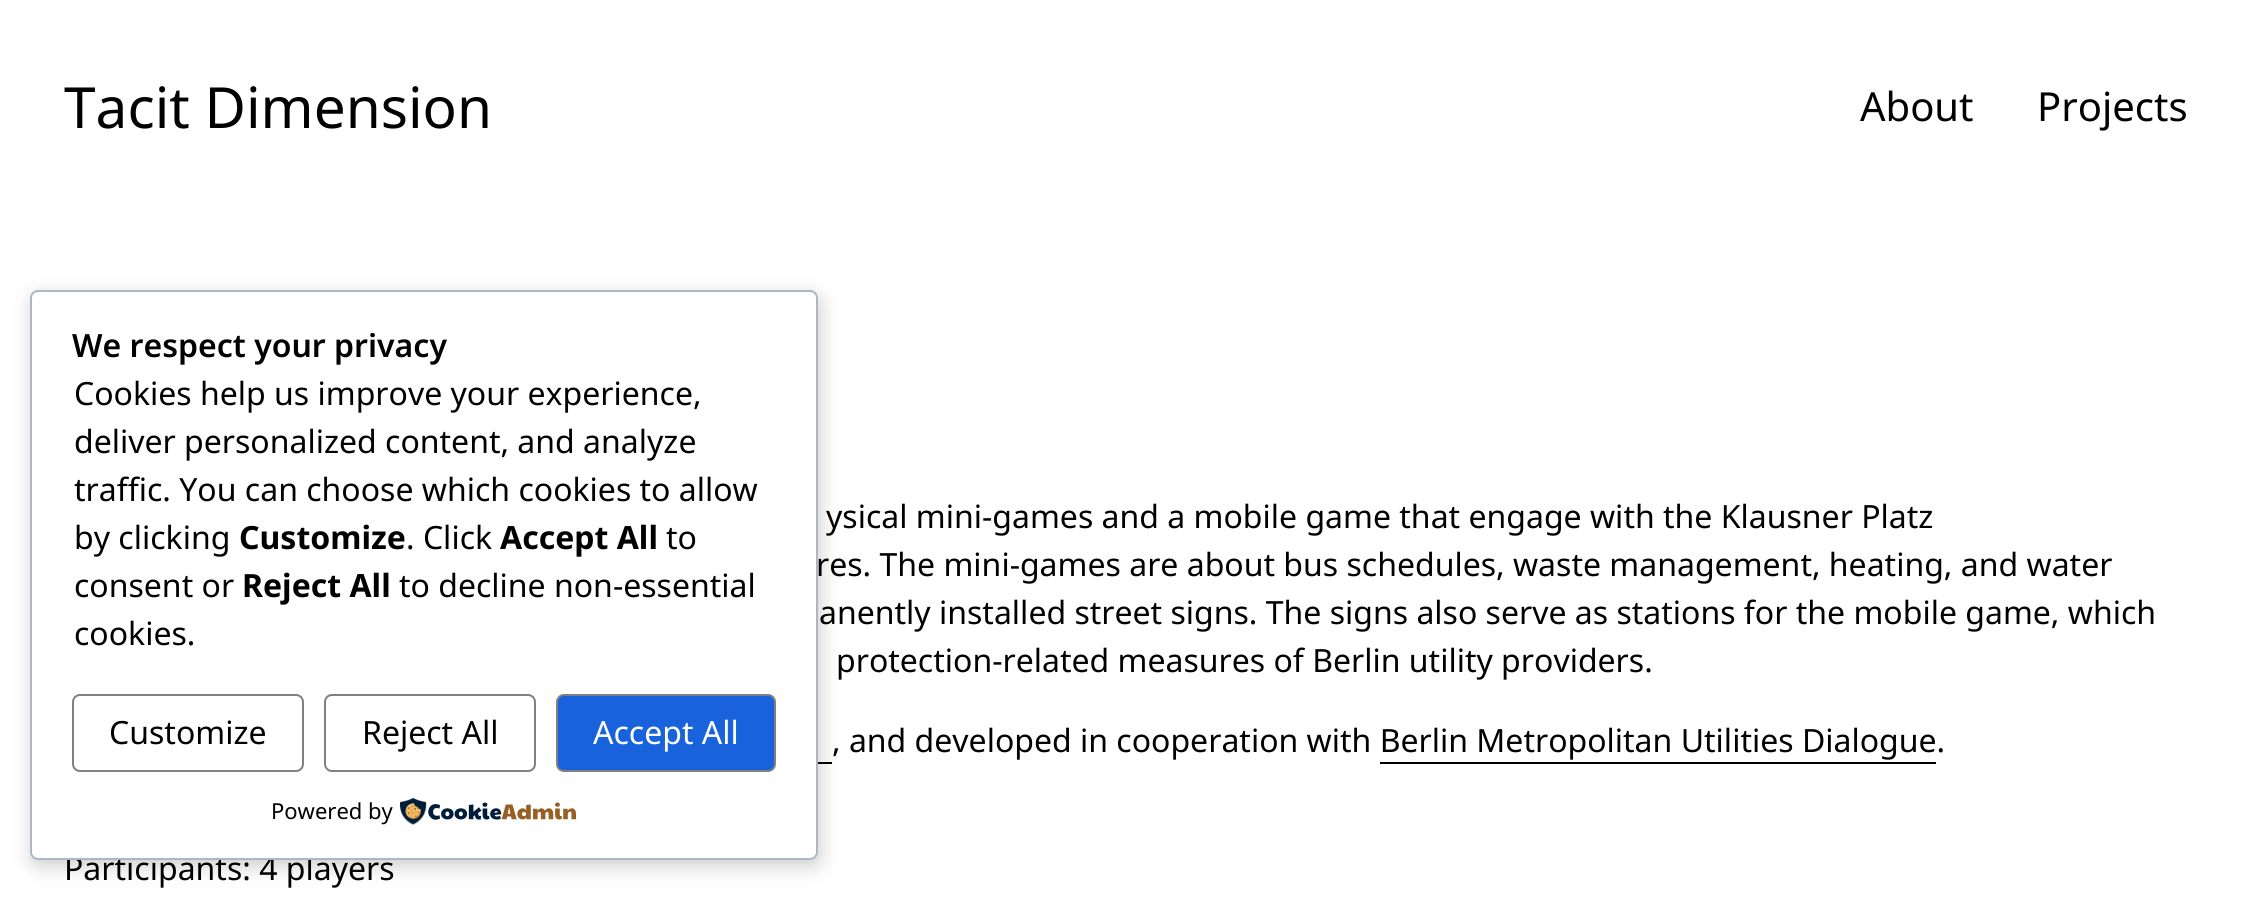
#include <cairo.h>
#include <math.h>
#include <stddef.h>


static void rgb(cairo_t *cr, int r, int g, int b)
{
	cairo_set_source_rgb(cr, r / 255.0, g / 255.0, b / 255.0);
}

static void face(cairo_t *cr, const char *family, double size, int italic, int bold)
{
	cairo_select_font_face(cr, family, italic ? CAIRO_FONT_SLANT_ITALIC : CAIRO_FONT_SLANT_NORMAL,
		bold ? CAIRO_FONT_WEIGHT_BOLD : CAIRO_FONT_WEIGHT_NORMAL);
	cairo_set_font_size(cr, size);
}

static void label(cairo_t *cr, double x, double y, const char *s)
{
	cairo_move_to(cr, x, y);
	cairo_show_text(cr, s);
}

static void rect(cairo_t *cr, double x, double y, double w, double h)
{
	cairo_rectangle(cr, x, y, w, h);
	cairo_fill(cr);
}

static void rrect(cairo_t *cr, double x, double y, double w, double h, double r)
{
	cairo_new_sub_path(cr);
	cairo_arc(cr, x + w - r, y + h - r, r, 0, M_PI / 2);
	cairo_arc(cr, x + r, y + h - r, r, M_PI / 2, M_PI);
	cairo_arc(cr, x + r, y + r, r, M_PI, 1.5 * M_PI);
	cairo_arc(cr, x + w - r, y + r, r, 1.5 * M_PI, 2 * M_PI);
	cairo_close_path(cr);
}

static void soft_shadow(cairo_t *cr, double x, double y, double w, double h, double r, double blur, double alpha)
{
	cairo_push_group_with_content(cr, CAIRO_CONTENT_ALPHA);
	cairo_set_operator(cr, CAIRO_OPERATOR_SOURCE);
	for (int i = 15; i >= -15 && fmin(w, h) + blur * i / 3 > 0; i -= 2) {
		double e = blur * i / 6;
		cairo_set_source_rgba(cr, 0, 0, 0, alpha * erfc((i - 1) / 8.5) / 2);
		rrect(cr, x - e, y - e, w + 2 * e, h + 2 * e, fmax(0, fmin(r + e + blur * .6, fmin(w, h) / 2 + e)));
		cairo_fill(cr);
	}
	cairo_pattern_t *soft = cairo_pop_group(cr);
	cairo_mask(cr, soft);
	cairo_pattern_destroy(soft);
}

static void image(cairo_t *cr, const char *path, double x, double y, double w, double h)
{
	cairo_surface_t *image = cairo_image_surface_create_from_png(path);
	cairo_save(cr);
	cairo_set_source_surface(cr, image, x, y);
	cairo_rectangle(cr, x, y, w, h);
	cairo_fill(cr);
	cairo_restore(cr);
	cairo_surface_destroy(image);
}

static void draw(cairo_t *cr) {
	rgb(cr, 255, 255, 255);
	cairo_paint(cr);
	face(cr, "Noto Sans", 56.75, 0, 0);
	rgb(cr, 0, 0, 0);
	label(cr, 64, 128, "Tacit Dimension");
	face(cr, "Noto Sans", 40, 0, 0);
	label(cr, 1860, 121, "About");
	label(cr, 2037, 121, "Projects");
	face(cr, "Noto Sans", 32, 0, 0);
	label(cr, 826, 528, "ysical mini-games and a mobile game that engage with the Klausner Platz");
	label(cr, 816, 576, "res. The mini-games are about bus schedules, waste management, heating, and water");
	label(cr, 819, 624, "anently installed street signs. The signs also serve as stations for the mobile game, which");
	label(cr, 836, 672, "protection-related measures of Berlin utility providers.");
	label(cr, 832, 752, ", and developed in cooperation with Berlin Metropolitan Utilities Dialogue.");
	rect(cr, 818, 762, 14, 2);
	rect(cr, 1380, 762, 556, 2);
	label(cr, 64, 880, "Participants: 4 players");
	rgb(cr, 0, 0, 0);
	soft_shadow(cr, 32, 296, 788, 570, 8, 10, 0.2);
	rgb(cr, 255, 255, 255);
	rrect(cr, 31, 291, 786, 568, 7);
	cairo_fill_preserve(cr);
	rgb(cr, 171, 184, 195);
	cairo_stroke(cr);
	face(cr, "Noto Sans SemiBold", 32, 0, 0);
	rgb(cr, 0, 0, 0);
	label(cr, 72, 357, "We respect your privacy");
	face(cr, "Noto Sans", 32, 0, 0);
	label(cr, 74, 405, "Cookies help us improve your experience,");
	label(cr, 74, 453, "deliver personalized content, and analyze");
	label(cr, 74, 501, "traffic. You can choose which cookies to allow");
	label(cr, 74, 549, "by clicking");
	face(cr, "Noto Sans", 32, 0, 1);
	label(cr, 239, 549, "Customize");
	face(cr, "Noto Sans", 32, 0, 0);
	label(cr, 406, 549, ". Click");
	face(cr, "Noto Sans", 32, 0, 1);
	label(cr, 500, 549, "Accept All");
	face(cr, "Noto Sans", 32, 0, 0);
	label(cr, 666, 549, "to");
	label(cr, 74, 597, "consent or");
	face(cr, "Noto Sans", 32, 0, 1);
	label(cr, 242, 597, "Reject All");
	face(cr, "Noto Sans", 32, 0, 0);
	label(cr, 399, 597, "to decline non-essential");
	label(cr, 74, 645, "cookies.");
	rrect(cr, 73, 695, 230, 76, 7);
	rgb(cr, 128, 128, 128);
	cairo_stroke(cr);
	rgb(cr, 0, 0, 0);
	label(cr, 109, 744, "Customize");
	rrect(cr, 325, 695, 210, 76, 7);
	rgb(cr, 128, 128, 128);
	cairo_stroke(cr);
	rgb(cr, 0, 0, 0);
	label(cr, 362, 744, "Reject All");
	rgb(cr, 24, 99, 220);
	rrect(cr, 557, 695, 218, 76, 7);
	cairo_fill_preserve(cr);
	rgb(cr, 128, 128, 128);
	cairo_stroke(cr);
	rgb(cr, 255, 255, 255);
	label(cr, 593, 744, "Accept All");
	face(cr, "Noto Sans", 22, 0, 0);
	rgb(cr, 0, 0, 0);
	label(cr, 271, 819, "Powered by");
	image(cr, "image0.png", 400, 798, 177, 27);
}

int main(void) {
	cairo_surface_t *surface = cairo_image_surface_create(CAIRO_FORMAT_RGB24, 2251, 900);
	cairo_t *cr = cairo_create(surface);
	cairo_font_options_t *options = cairo_font_options_create();
	cairo_font_options_set_hint_metrics(options, CAIRO_HINT_METRICS_OFF);
	cairo_font_options_set_hint_style(options, CAIRO_HINT_STYLE_NONE);
	cairo_set_font_options(cr, options);
	cairo_set_miter_limit(cr, 4);
	draw(cr);
	cairo_surface_write_to_png(surface, "render.png");
	cairo_font_options_destroy(options);
	cairo_destroy(cr);
	cairo_surface_destroy(surface);
	return 0;
}
